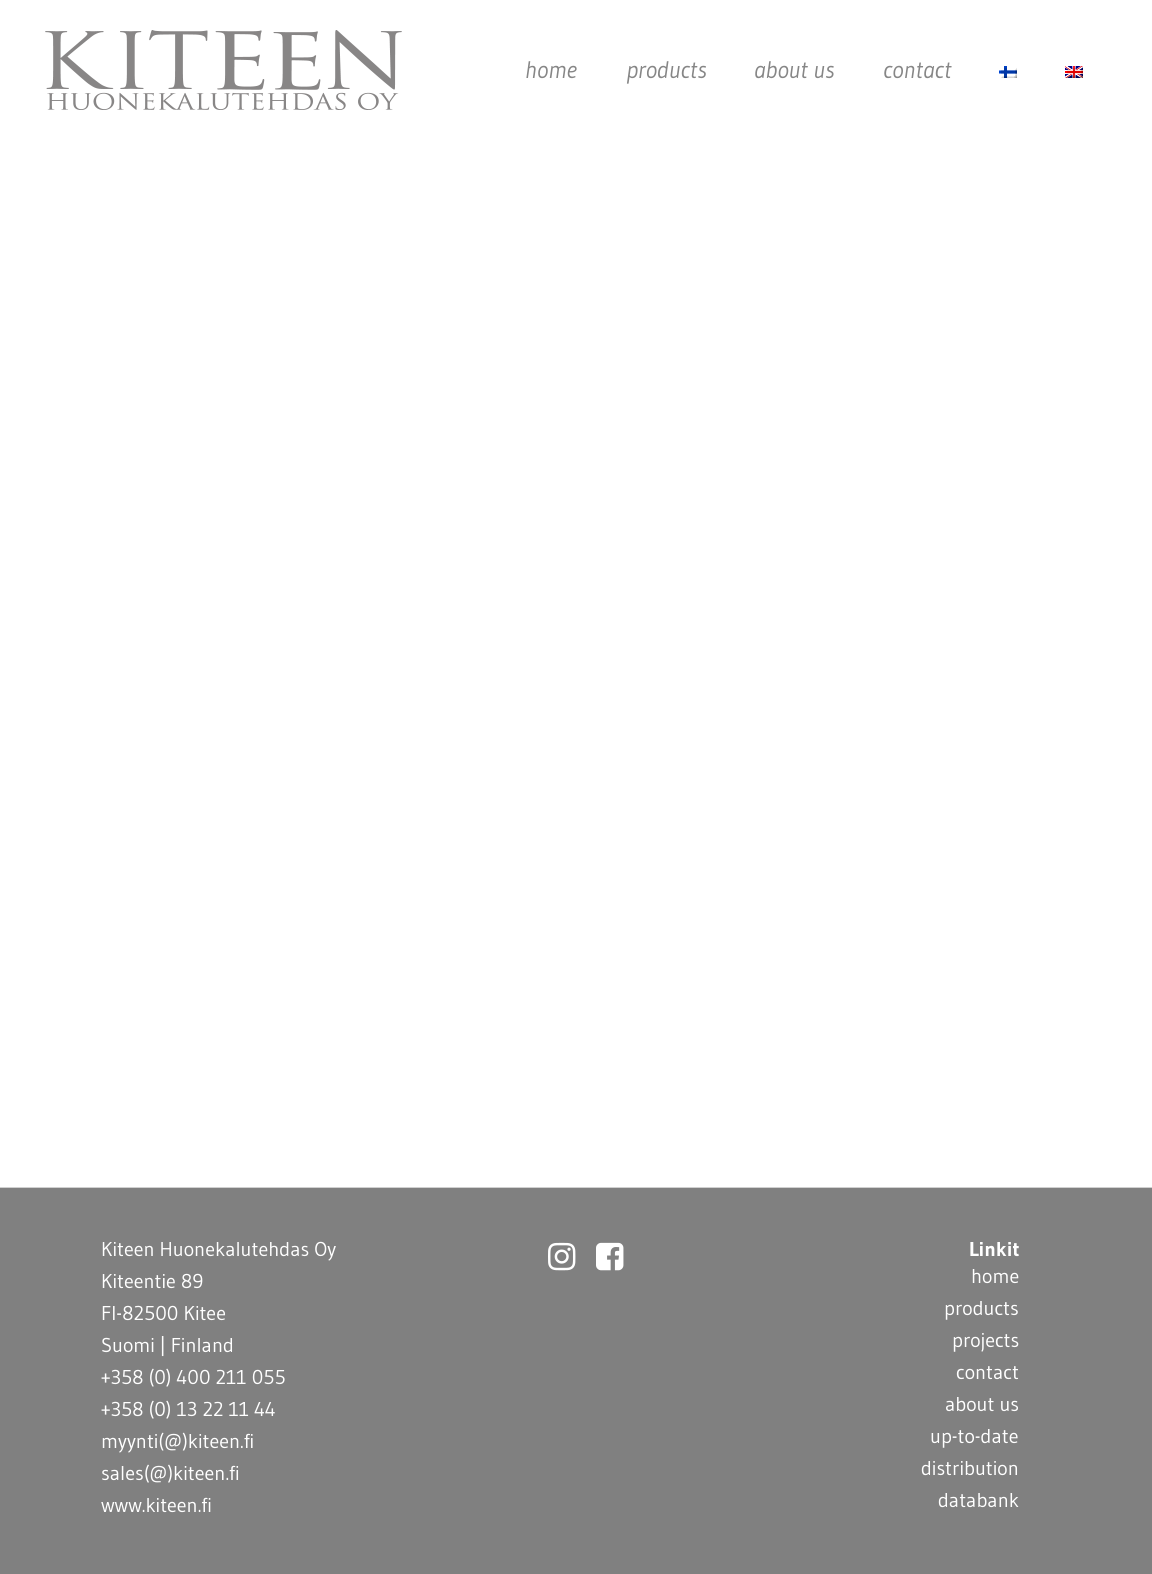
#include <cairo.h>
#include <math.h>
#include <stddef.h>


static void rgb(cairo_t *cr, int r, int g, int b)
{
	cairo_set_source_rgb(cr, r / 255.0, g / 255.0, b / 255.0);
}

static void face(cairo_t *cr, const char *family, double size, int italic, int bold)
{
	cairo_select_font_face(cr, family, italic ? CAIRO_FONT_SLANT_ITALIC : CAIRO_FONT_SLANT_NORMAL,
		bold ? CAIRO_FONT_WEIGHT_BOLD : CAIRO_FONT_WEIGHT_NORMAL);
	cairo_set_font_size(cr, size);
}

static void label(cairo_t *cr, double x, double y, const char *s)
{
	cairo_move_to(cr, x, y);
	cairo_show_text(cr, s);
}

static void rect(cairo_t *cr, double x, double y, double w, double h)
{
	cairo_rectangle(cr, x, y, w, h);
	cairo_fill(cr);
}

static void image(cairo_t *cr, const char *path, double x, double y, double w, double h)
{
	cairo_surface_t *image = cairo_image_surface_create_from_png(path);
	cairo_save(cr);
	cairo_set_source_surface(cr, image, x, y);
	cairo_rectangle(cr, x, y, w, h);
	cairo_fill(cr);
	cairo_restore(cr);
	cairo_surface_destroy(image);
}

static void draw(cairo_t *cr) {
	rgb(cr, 255, 255, 255);
	cairo_paint(cr);
	image(cr, "image0.png", 45, 30, 357, 80);
	face(cr, "Gudea", 24, 1, 0);
	rgb(cr, 134, 134, 134);
	label(cr, 525, 78, "home");
	label(cr, 626, 78, "products");
	label(cr, 754, 78, "about us");
	label(cr, 883, 78, "contact");
	image(cr, "image1.png", 999, 66, 18, 12);
	image(cr, "image2.png", 1065, 66, 18, 12);
	rgb(cr, 208, 208, 208);
	rect(cr, 0, 1187, 1152, 1);
	rgb(cr, 128, 128, 128);
	rect(cr, 0, 1188, 1152, 386);
	face(cr, "Gudea", 20, 0, 0);
	rgb(cr, 255, 255, 255);
	label(cr, 101, 1256, "Kiteen Huonekalutehdas Oy");
	label(cr, 101, 1288, "Kiteentie 89");
	label(cr, 101, 1320, "FI-82500 Kitee");
	label(cr, 101, 1352, "Suomi | Finland");
	label(cr, 101, 1384, "+358 (0) 400 211 055");
	label(cr, 101, 1416, "+358 (0) 13 22 11 44");
	label(cr, 101, 1448, "myynti(@)kiteen.fi");
	label(cr, 101, 1480, "sales(@)kiteen.fi");
	label(cr, 101, 1512, "www.kiteen.fi");
	image(cr, "image3.png", 548, 1242, 28, 29);
	image(cr, "image4.png", 596, 1242, 28, 29);
	face(cr, "Gudea", 20, 0, 1);
	label(cr, 969, 1256, "Linkit");
	face(cr, "Gudea", 20, 0, 0);
	label(cr, 971, 1283, "home");
	label(cr, 944, 1315, "products");
	label(cr, 952, 1347, "projects");
	label(cr, 956, 1379, "contact");
	label(cr, 945, 1411, "about us");
	label(cr, 930, 1443, "up-to-date");
	label(cr, 921, 1475, "distribution");
	label(cr, 938, 1507, "databank");
}

int main(void) {
	cairo_surface_t *surface = cairo_image_surface_create(CAIRO_FORMAT_RGB24, 1152, 1574);
	cairo_t *cr = cairo_create(surface);
	cairo_font_options_t *options = cairo_font_options_create();
	cairo_font_options_set_hint_metrics(options, CAIRO_HINT_METRICS_OFF);
	cairo_font_options_set_hint_style(options, CAIRO_HINT_STYLE_NONE);
	cairo_set_font_options(cr, options);
	cairo_set_miter_limit(cr, 4);
	draw(cr);
	cairo_surface_write_to_png(surface, "render.png");
	cairo_font_options_destroy(options);
	cairo_destroy(cr);
	cairo_surface_destroy(surface);
	return 0;
}
